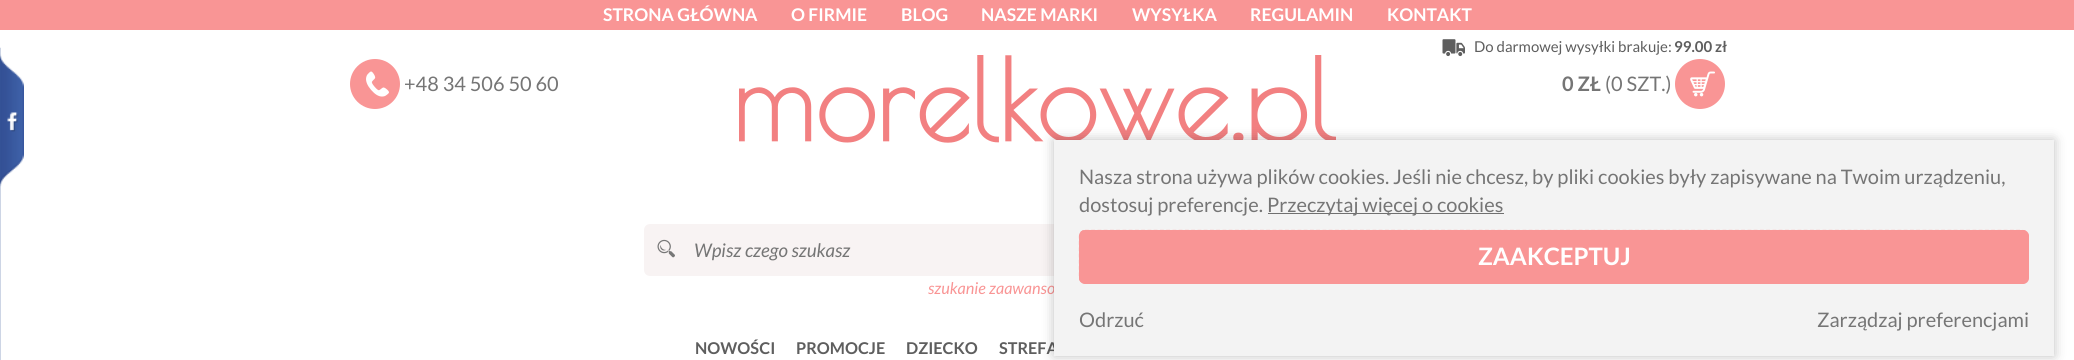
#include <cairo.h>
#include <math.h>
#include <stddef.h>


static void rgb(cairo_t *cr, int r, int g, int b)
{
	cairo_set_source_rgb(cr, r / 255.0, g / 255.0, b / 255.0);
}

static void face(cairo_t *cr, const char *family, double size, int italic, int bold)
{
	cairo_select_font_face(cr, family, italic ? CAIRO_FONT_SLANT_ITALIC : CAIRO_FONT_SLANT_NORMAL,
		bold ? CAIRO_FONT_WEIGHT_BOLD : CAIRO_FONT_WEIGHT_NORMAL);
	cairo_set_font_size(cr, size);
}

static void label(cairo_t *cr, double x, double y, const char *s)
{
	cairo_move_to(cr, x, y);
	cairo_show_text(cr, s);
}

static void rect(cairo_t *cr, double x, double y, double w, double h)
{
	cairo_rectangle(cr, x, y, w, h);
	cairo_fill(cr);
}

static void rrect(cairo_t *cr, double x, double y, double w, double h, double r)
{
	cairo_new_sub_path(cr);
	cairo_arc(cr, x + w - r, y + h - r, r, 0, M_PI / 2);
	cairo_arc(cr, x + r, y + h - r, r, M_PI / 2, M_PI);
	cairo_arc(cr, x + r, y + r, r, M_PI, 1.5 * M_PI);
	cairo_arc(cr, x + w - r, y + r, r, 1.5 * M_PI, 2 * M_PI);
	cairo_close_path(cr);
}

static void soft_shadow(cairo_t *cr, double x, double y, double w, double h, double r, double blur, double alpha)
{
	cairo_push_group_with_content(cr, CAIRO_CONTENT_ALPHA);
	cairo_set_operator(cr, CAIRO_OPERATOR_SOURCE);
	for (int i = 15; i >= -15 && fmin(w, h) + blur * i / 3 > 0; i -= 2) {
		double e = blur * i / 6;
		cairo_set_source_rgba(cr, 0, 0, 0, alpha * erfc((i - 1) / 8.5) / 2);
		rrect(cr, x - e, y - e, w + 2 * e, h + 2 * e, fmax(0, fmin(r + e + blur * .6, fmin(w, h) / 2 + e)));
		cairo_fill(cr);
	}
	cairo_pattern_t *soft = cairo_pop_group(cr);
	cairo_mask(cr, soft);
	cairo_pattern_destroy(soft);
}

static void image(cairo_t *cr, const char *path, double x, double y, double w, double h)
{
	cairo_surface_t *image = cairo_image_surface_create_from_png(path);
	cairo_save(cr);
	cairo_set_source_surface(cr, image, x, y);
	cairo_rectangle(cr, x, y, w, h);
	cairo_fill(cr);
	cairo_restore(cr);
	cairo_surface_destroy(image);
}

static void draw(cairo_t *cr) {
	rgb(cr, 255, 255, 255);
	cairo_paint(cr);
	image(cr, "image0.png", 0, 54, 24, 133);
	cairo_new_path(cr);
	cairo_move_to(cr, -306, 54);
	cairo_line_to(cr, -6, 54);
	cairo_line_to(cr, -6, 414);
	cairo_line_to(cr, -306, 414);
	cairo_close_path(cr);
	rgb(cr, 55, 87, 153);
	cairo_set_line_width(cr, 12.5);
	cairo_stroke(cr);
	rgb(cr, 249, 149, 149);
	rect(cr, 0, 0, 2074, 30);
	face(cr, "Lato", 17.5, 0, 1);
	rgb(cr, 255, 255, 255);
	label(cr, 603, 21, "STRONA GŁÓWNA");
	label(cr, 791, 21, "O FIRMIE");
	label(cr, 901, 21, "BLOG");
	label(cr, 981, 21, "NASZE MARKI");
	label(cr, 1132, 21, "WYSYŁKA");
	label(cr, 1250, 21, "REGULAMIN");
	label(cr, 1387, 21, "KONTAKT");
	image(cr, "image1.png", 1442, 39, 23, 18);
	face(cr, "Lato", 15, 0, 0);
	rgb(cr, 94, 94, 94);
	label(cr, 1474, 52, "Do darmowej wysyłki brakuje:");
	face(cr, "Lato", 15, 0, 1);
	label(cr, 1674, 52, "99.00 zł");
	rgb(cr, 249, 149, 149);
	cairo_new_path(cr);
	cairo_arc(cr, 375, 84, 25, 0, 2 * M_PI);
	cairo_fill(cr);
	image(cr, "image2.png", 366, 71, 23, 26);
	face(cr, "Lato", 20, 0, 0);
	rgb(cr, 117, 117, 117);
	label(cr, 404, 91, "+48 34 506 50 60");
	image(cr, "image3.png", 739, 55, 597, 88);
	face(cr, "Lato", 20, 0, 1);
	label(cr, 1562, 91, "0 ZŁ");
	face(cr, "Lato", 20, 0, 0);
	label(cr, 1605, 91, "(0 SZT.)");
	rgb(cr, 249, 149, 149);
	cairo_new_path(cr);
	cairo_arc(cr, 1700, 84, 25, 0, 2 * M_PI);
	cairo_fill(cr);
	image(cr, "image4.png", 1690, 71, 25, 26);
	rgb(cr, 248, 243, 243);
	rrect(cr, 644, 224, 750, 52, 6);
	cairo_fill(cr);
	image(cr, "image5.png", 657, 239, 18, 19);
	face(cr, "Lato", 18.75, 1, 0);
	rgb(cr, 117, 117, 117);
	label(cr, 694, 257, "Wpisz czego szukasz");
	face(cr, "Lato", 16.25, 1, 0);
	rgb(cr, 249, 149, 149);
	label(cr, 928, 294, "szukanie zaawanso");
	face(cr, "Lato", 16.25, 0, 1);
	rgb(cr, 94, 94, 94);
	label(cr, 695, 354, "NOWOŚCI");
	label(cr, 796, 354, "PROMOCJE");
	label(cr, 906, 354, "DZIECKO");
	label(cr, 999, 354, "STREFA");
	rgb(cr, 0, 0, 0);
	soft_shadow(cr, 1054, 140, 1000, 216, 0, 6, 0.25);
	rgb(cr, 243, 243, 243);
	rect(cr, 1054, 140, 1000, 216);
	face(cr, "Lato", 20, 0, 0);
	rgb(cr, 117, 117, 117);
	label(cr, 1079, 184, "Nasza strona używa plików cookies. Jeśli nie chcesz, by pliki cookies były zapisywane na Twoim urządzeniu,");
	label(cr, 1079, 212, "dostosuj preferencje.");
	rgb(cr, 112, 112, 112);
	rect(cr, 1268, 213, 236, 1);
	rgb(cr, 117, 117, 117);
	label(cr, 1267, 212, "Przeczytaj więcej o cookies");
	rgb(cr, 249, 149, 149);
	rrect(cr, 1079, 230, 950, 54, 6);
	cairo_fill(cr);
	cairo_new_path(cr);
	cairo_move_to(cr, 1085, 230.5);
	cairo_line_to(cr, 2022.5, 230.5);
	cairo_curve_to(cr, 2025.5, 230.5, 2028, 233, 2028, 236);
	cairo_line_to(cr, 2028, 277.5);
	cairo_curve_to(cr, 2028, 280.5, 2025.5, 283, 2022.5, 283);
	cairo_line_to(cr, 1085, 283);
	cairo_curve_to(cr, 1082, 283, 1079.5, 280.5, 1079.5, 277.5);
	cairo_line_to(cr, 1079.5, 236);
	cairo_curve_to(cr, 1079.5, 233, 1082, 230.5, 1085, 230.5);
	cairo_close_path(cr);
	cairo_set_line_width(cr, 1.2);
	cairo_set_dash(cr, (double[]){3.75, 2.5}, 2, 0);
	cairo_stroke(cr);
	face(cr, "Lato", 24, 0, 1);
	rgb(cr, 255, 255, 255);
	label(cr, 1478, 265, "ZAAKCEPTUJ");
	face(cr, "Lato", 20, 0, 0);
	rgb(cr, 117, 117, 117);
	label(cr, 1079, 327, "Odrzuć");
	label(cr, 1817, 327, "Zarządzaj preferencjami");
}

int main(void) {
	cairo_surface_t *surface = cairo_image_surface_create(CAIRO_FORMAT_RGB24, 2074, 360);
	cairo_t *cr = cairo_create(surface);
	cairo_font_options_t *options = cairo_font_options_create();
	cairo_font_options_set_hint_metrics(options, CAIRO_HINT_METRICS_OFF);
	cairo_font_options_set_hint_style(options, CAIRO_HINT_STYLE_NONE);
	cairo_set_font_options(cr, options);
	cairo_set_miter_limit(cr, 4);
	draw(cr);
	cairo_surface_write_to_png(surface, "render.png");
	cairo_font_options_destroy(options);
	cairo_destroy(cr);
	cairo_surface_destroy(surface);
	return 0;
}
